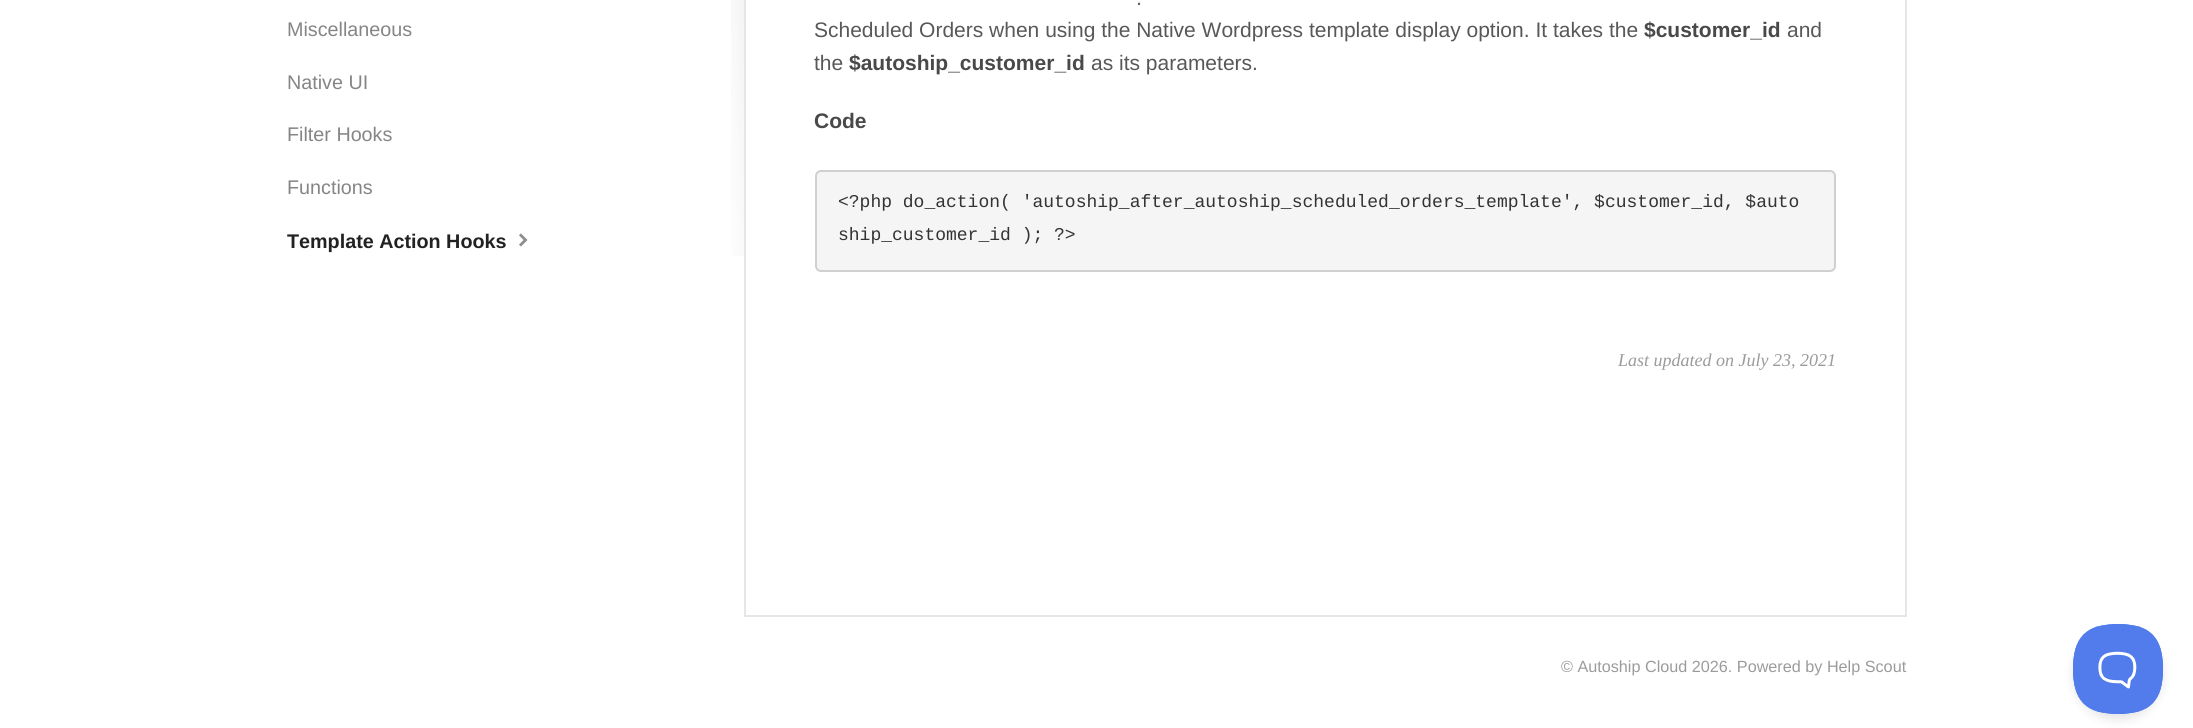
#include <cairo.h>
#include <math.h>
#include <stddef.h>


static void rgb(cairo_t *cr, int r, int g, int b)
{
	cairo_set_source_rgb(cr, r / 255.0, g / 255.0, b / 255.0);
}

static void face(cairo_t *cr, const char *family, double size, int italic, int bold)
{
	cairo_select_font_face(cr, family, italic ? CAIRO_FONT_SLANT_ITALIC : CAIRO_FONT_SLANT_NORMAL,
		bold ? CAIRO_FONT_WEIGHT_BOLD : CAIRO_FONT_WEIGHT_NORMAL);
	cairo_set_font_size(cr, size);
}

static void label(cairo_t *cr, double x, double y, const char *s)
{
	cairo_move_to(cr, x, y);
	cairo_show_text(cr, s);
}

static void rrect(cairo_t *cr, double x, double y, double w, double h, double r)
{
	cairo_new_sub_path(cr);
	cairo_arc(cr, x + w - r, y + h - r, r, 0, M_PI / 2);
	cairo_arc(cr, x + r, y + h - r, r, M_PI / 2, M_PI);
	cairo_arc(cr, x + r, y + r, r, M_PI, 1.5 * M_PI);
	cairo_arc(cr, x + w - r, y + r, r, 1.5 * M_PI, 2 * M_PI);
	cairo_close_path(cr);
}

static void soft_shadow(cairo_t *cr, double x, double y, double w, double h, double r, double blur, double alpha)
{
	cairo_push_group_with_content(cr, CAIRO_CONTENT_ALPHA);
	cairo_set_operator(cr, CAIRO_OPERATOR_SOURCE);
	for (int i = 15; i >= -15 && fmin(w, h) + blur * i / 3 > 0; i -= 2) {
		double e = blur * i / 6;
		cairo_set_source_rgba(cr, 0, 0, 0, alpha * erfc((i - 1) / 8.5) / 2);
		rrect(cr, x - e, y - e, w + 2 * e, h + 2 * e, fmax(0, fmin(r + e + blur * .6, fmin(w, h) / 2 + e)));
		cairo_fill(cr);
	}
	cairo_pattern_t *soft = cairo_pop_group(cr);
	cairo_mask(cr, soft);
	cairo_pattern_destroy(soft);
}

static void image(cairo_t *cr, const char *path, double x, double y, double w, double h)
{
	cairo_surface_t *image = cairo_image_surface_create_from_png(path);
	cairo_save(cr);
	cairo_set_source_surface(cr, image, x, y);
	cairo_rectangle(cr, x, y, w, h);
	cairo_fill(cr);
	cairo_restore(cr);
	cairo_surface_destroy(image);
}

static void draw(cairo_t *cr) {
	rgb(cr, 255, 255, 255);
	cairo_paint(cr);
	face(cr, "Liberation Sans", 19.75, 0, 0);
	rgb(cr, 133, 133, 133);
	label(cr, 287, 36, "Miscellaneous");
	label(cr, 287, 89, "Native UI");
	label(cr, 287, 141, "Filter Hooks");
	label(cr, 287, 194, "Functions");
	face(cr, "Liberation Sans", 19.75, 0, 1);
	rgb(cr, 34, 34, 34);
	label(cr, 287, 248, "Template Action Hooks");
	image(cr, "image0.png", 519, 233, 9, 14);
	image(cr, "image1.png", 731, 0, 13, 256);
	cairo_rectangle(cr, 745, -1, 1161, 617);
	rgb(cr, 233, 229, 229);
	cairo_stroke(cr);
	face(cr, "Liberation Sans", 21, 1, 0);
	rgb(cr, 88, 88, 88);
	label(cr, 1137, 5, ".");
	face(cr, "Liberation Sans", 21, 0, 0);
	label(cr, 814, 37, "Scheduled Orders when using the Native Wordpress template display option. It takes the");
	face(cr, "Liberation Sans", 21, 0, 1);
	rgb(cr, 73, 73, 73);
	label(cr, 1644, 37, "$customer_id");
	face(cr, "Liberation Sans", 21, 0, 0);
	rgb(cr, 88, 88, 88);
	label(cr, 1787, 37, "and");
	label(cr, 814, 70, "the");
	face(cr, "Liberation Sans", 21, 0, 1);
	rgb(cr, 73, 73, 73);
	label(cr, 849, 70, "$autoship_customer_id");
	face(cr, "Liberation Sans", 21, 0, 0);
	rgb(cr, 88, 88, 88);
	label(cr, 1091, 70, "as its parameters.");
	face(cr, "Liberation Sans", 21, 0, 1);
	rgb(cr, 73, 73, 73);
	label(cr, 814, 128, "Code");
	rgb(cr, 245, 245, 245);
	rrect(cr, 816, 171, 1019, 100, 5);
	cairo_fill_preserve(cr);
	rgb(cr, 208, 208, 208);
	cairo_stroke(cr);
	face(cr, "Liberation Mono", 18, 0, 0);
	rgb(cr, 51, 51, 51);
	label(cr, 838, 207, "<?php do_action( 'autoship_after_autoship_scheduled_orders_template', $customer_id, $auto");
	label(cr, 838, 240, "ship_customer_id ); ?>");
	face(cr, "Liberation Serif", 18, 1, 0);
	rgb(cr, 155, 155, 155);
	label(cr, 1618, 366, "Last updated on July 23, 2021");
	face(cr, "Liberation Sans", 16.2, 0, 0);
	label(cr, 1561, 672, "© Autoship Cloud 2026. Powered by Help Scout");
	rgb(cr, 0, 0, 0);
	soft_shadow(cr, 2073, 630, 90, 90, 45, 5, 0.1);
	image(cr, "image2.png", 2073, 624, 90, 90);
}

int main(void) {
	cairo_surface_t *surface = cairo_image_surface_create(CAIRO_FORMAT_RGB24, 2193, 728);
	cairo_t *cr = cairo_create(surface);
	cairo_font_options_t *options = cairo_font_options_create();
	cairo_font_options_set_hint_metrics(options, CAIRO_HINT_METRICS_OFF);
	cairo_font_options_set_hint_style(options, CAIRO_HINT_STYLE_NONE);
	cairo_set_font_options(cr, options);
	cairo_set_miter_limit(cr, 4);
	draw(cr);
	cairo_surface_write_to_png(surface, "render.png");
	cairo_font_options_destroy(options);
	cairo_destroy(cr);
	cairo_surface_destroy(surface);
	return 0;
}
